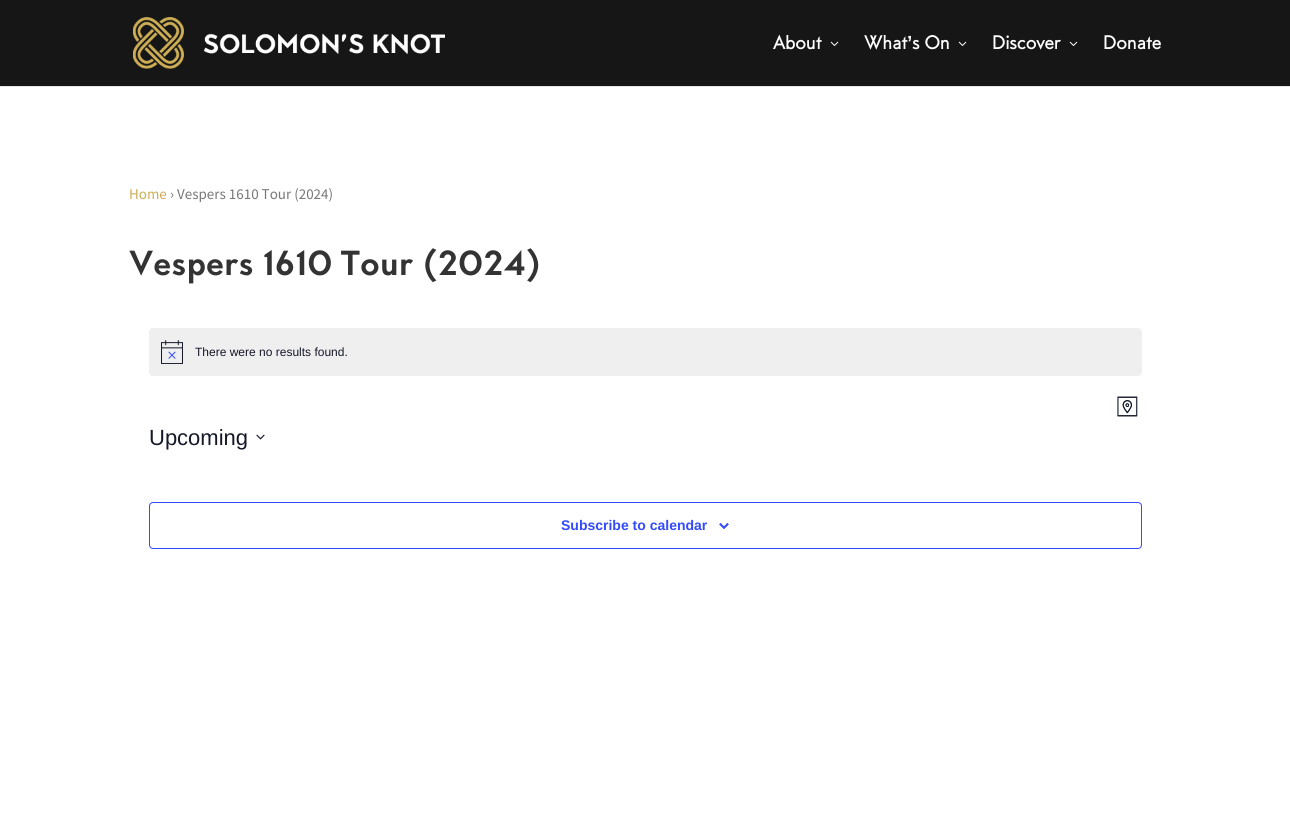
#include <cairo.h>
#include <math.h>
#include <stddef.h>


static void rgb(cairo_t *cr, int r, int g, int b)
{
	cairo_set_source_rgb(cr, r / 255.0, g / 255.0, b / 255.0);
}

static void face(cairo_t *cr, const char *family, double size, int italic, int bold)
{
	cairo_select_font_face(cr, family, italic ? CAIRO_FONT_SLANT_ITALIC : CAIRO_FONT_SLANT_NORMAL,
		bold ? CAIRO_FONT_WEIGHT_BOLD : CAIRO_FONT_WEIGHT_NORMAL);
	cairo_set_font_size(cr, size);
}

static void label(cairo_t *cr, double x, double y, const char *s)
{
	cairo_move_to(cr, x, y);
	cairo_show_text(cr, s);
}

static void rect(cairo_t *cr, double x, double y, double w, double h)
{
	cairo_rectangle(cr, x, y, w, h);
	cairo_fill(cr);
}

static void rrect(cairo_t *cr, double x, double y, double w, double h, double r)
{
	cairo_new_sub_path(cr);
	cairo_arc(cr, x + w - r, y + h - r, r, 0, M_PI / 2);
	cairo_arc(cr, x + r, y + h - r, r, M_PI / 2, M_PI);
	cairo_arc(cr, x + r, y + r, r, M_PI, 1.5 * M_PI);
	cairo_arc(cr, x + w - r, y + r, r, 1.5 * M_PI, 2 * M_PI);
	cairo_close_path(cr);
}

static void image(cairo_t *cr, const char *path, double x, double y, double w, double h)
{
	cairo_surface_t *image = cairo_image_surface_create_from_png(path);
	cairo_save(cr);
	cairo_set_source_surface(cr, image, x, y);
	cairo_rectangle(cr, x, y, w, h);
	cairo_fill(cr);
	cairo_restore(cr);
	cairo_surface_destroy(image);
}

static void draw(cairo_t *cr) {
	rgb(cr, 255, 255, 255);
	cairo_paint(cr);
	rgb(cr, 230, 230, 230);
	rect(cr, 0, 86, 1290, 1);
	rgb(cr, 22, 22, 22);
	rect(cr, 0, 0, 1290, 86);
	image(cr, "image0.png", 133, 17, 312, 52);
	face(cr, "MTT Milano", 19, 0, 1);
	rgb(cr, 255, 255, 255);
	label(cr, 773, 49, "About");
	image(cr, "image1.png", 830, 41, 9, 5);
	label(cr, 864, 49, "What");
	face(cr, "Liberation Sans", 19, 0, 1);
	label(cr, 907, 49, "’");
	face(cr, "MTT Milano", 19, 0, 1);
	label(cr, 912, 49, "s On");
	image(cr, "image1.png", 958, 41, 9, 5);
	label(cr, 992, 49, "Discover");
	image(cr, "image1.png", 1069, 41, 9, 5);
	label(cr, 1103, 49, "Donate");
	face(cr, "Source Sans Pro", 15, 0, 0);
	rgb(cr, 205, 173, 86);
	label(cr, 129, 199, "Home");
	rgb(cr, 119, 119, 119);
	label(cr, 170, 199, "› Vespers 1610 Tour (2024)");
	face(cr, "MTT Milano ExtraBold", 35, 0, 0);
	rgb(cr, 51, 51, 51);
	label(cr, 129, 275, "Vespers 1610 Tour (2024)");
	rgb(cr, 239, 239, 240);
	rrect(cr, 149, 328, 993, 48, 4);
	cairo_fill(cr);
	image(cr, "image2.png", 161, 340, 22, 24);
	face(cr, "Liberation Sans", 12, 0, 0);
	rgb(cr, 20, 24, 39);
	label(cr, 195, 356, "There were no results found.");
	image(cr, "image3.png", 1117, 396, 21, 21);
	face(cr, "Liberation Sans", 22, 0, 0);
	label(cr, 149, 445, "Upcoming");
	image(cr, "image4.png", 256, 434, 9, 6);
	rrect(cr, 149.5, 502.5, 992, 46, 3.5);
	rgb(cr, 51, 74, 255);
	cairo_set_line_width(cr, 1);
	cairo_stroke(cr);
	face(cr, "Liberation Sans", 14, 0, 1);
	label(cr, 561, 530, "Subscribe to calendar");
	image(cr, "image5.png", 719, 523, 10, 6);
}

int main(void) {
	cairo_surface_t *surface = cairo_image_surface_create(CAIRO_FORMAT_RGB24, 1290, 825);
	cairo_t *cr = cairo_create(surface);
	cairo_font_options_t *options = cairo_font_options_create();
	cairo_font_options_set_hint_metrics(options, CAIRO_HINT_METRICS_OFF);
	cairo_font_options_set_hint_style(options, CAIRO_HINT_STYLE_NONE);
	cairo_set_font_options(cr, options);
	cairo_set_miter_limit(cr, 4);
	draw(cr);
	cairo_surface_write_to_png(surface, "render.png");
	cairo_font_options_destroy(options);
	cairo_destroy(cr);
	cairo_surface_destroy(surface);
	return 0;
}
